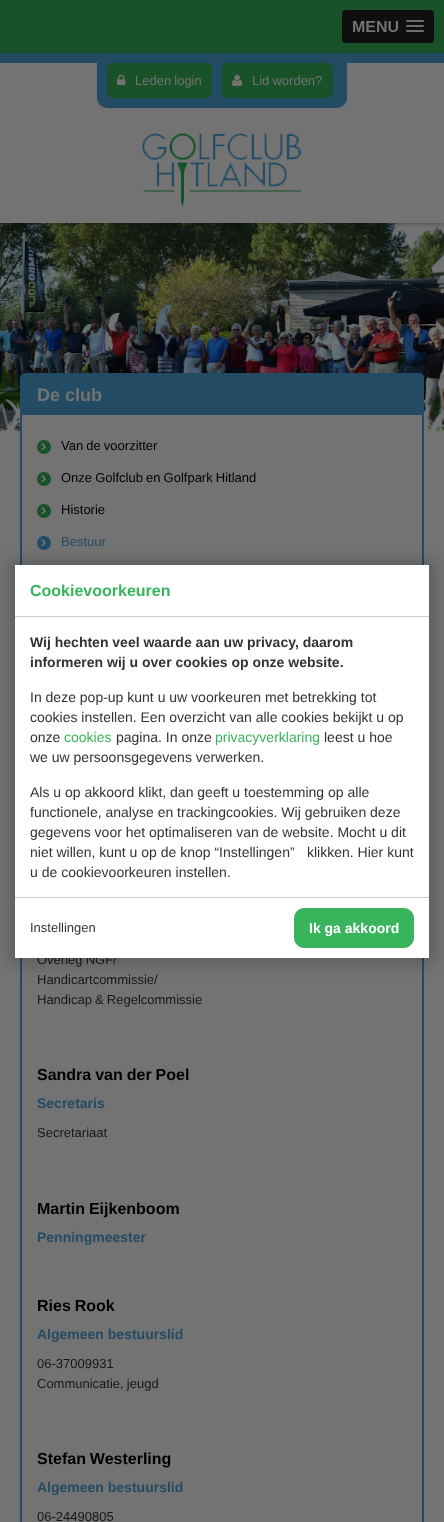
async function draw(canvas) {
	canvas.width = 444;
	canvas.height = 1522;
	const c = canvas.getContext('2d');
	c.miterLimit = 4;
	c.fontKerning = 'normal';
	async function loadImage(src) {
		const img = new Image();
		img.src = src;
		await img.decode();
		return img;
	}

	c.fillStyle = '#737373';
	c.fillRect(0, 0, 444, 1522);
	c.fillStyle = '#195129';
	c.fillRect(0, 0, 444, 53);
	c.fillStyle = '#0f0f0f';
	c.beginPath();
	c.roundRect(342, 10, 92, 33, 4);
	c.fill();
	c.font = 'bold 16px Liberation Sans';
	c.fillStyle = '#737373';
	c.fillText('MENU', 352, 32);
	c.fillStyle = '#0c0c0c';
	c.beginPath();
	c.moveTo(406, 21.5);
	c.bezierCurveTo(405, 23.5, 409.5, 23, 409.5, 23);
	c.lineTo(420.5, 23);
	c.bezierCurveTo(420.5, 23, 425, 23.5, 424, 21.5);
	c.bezierCurveTo(423, 22.5, 416.5, 22, 415, 22);
	c.bezierCurveTo(413.5, 22, 407, 22.5, 406, 21.5);
	c.closePath();
	c.fill();
	c.fillStyle = '#6e6e6e';
	c.beginPath();
	c.roundRect(406, 20, 18, 2, 1);
	c.fill();
	c.fillStyle = '#0c0c0c';
	c.beginPath();
	c.moveTo(406, 26.5);
	c.bezierCurveTo(405, 28.5, 409.5, 28, 409.5, 28);
	c.lineTo(420.5, 28);
	c.bezierCurveTo(420.5, 28, 425, 28.5, 424, 26.5);
	c.bezierCurveTo(423, 27.5, 416.5, 27, 415, 27);
	c.bezierCurveTo(413.5, 27, 407, 27.5, 406, 26.5);
	c.closePath();
	c.fill();
	c.fillStyle = '#6e6e6e';
	c.beginPath();
	c.roundRect(406, 25, 18, 2, 1);
	c.fill();
	c.fillStyle = '#0c0c0c';
	c.beginPath();
	c.moveTo(406, 31.5);
	c.bezierCurveTo(405, 33.5, 409.5, 33, 409.5, 33);
	c.lineTo(420.5, 33);
	c.bezierCurveTo(420.5, 33, 425, 33.5, 424, 31.5);
	c.bezierCurveTo(423, 32.5, 416.5, 32, 415, 32);
	c.bezierCurveTo(413.5, 32, 407, 32.5, 406, 31.5);
	c.closePath();
	c.fill();
	c.fillStyle = '#6e6e6e';
	c.beginPath();
	c.roundRect(406, 30, 18, 2, 1);
	c.fill();
	c.drawImage(await loadImage('img4.png'), 0, 223, 444, 208);
	c.save();
	c.beginPath();
	c.moveTo(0, 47);
	c.lineTo(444, 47);
	c.lineTo(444, 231);
	c.lineTo(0, 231);
	c.closePath();
	c.moveTo(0, 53);
	c.lineTo(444, 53);
	c.lineTo(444, 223);
	c.lineTo(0, 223);
	c.closePath();
	c.clip('evenodd');
	c.fillStyle = '#0000004d';
	c.filter = 'blur(2px)';
	c.beginPath();
	c.rect(0, 54, 444, 170);
	c.fill();
	c.filter = 'none';
	c.restore();
	c.fillStyle = '#244b64';
	c.fillRect(0, 53, 444, 10);
	c.beginPath();
	c.roundRect(97, 63, 250, 45, [0, 0, 10, 10]);
	c.fill();
	c.fillStyle = '#195129';
	c.beginPath();
	c.roundRect(107, 63, 105, 35, 5);
	c.fill();
	c.drawImage(await loadImage('img1.png'), 117, 74, 9, 11);
	c.wordSpacing = '-0.5px';
	c.font = '13px Liberation Sans';
	c.fillStyle = '#737373';
	c.fillText('Leden login', 135, 85);
	c.fillStyle = '#195129';
	c.beginPath();
	c.roundRect(222, 63, 111, 35, 5);
	c.fill();
	c.drawImage(await loadImage('img2.png'), 232, 74, 11, 12);
	c.fillStyle = '#737373';
	c.fillText('Lid worden?', 252, 85);
	c.drawImage(await loadImage('img3.png'), 142, 133, 160, 75);
	c.drawImage(await loadImage('img5.png'), 0, 391, 444, 57);
	c.beginPath();
	c.roundRect(21, 374, 402, 296, 4);
	c.fill();
	c.strokeStyle = '#244b64';
	c.lineWidth = 2;
	c.stroke();
	c.fillStyle = '#244b64';
	c.fillRect(22, 375, 400, 40);
	c.wordSpacing = '0px';
	c.font = 'bold 18px Liberation Sans';
	c.fillStyle = '#737373';
	c.fillText('De club', 37, 401);
	c.fillStyle = '#195129';
	c.beginPath();
	c.arc(44, 447, 7, 0, 2 * Math.PI);
	c.fill();
	c.drawImage(await loadImage('img6.png'), 41, 443, 5, 8);
	c.wordSpacing = '-0.5px';
	c.font = '13px Liberation Sans';
	c.fillStyle = '#000';
	c.fillText('Van de voorzitter', 61, 450);
	c.fillStyle = '#195129';
	c.beginPath();
	c.arc(44, 479, 7, 0, 2 * Math.PI);
	c.fill();
	c.drawImage(await loadImage('img6.png'), 41, 475, 5, 8);
	c.fillStyle = '#000';
	c.fillText('Onze Golfclub en Golfpark Hitland', 61, 482);
	c.fillStyle = '#195129';
	c.beginPath();
	c.arc(44, 511, 7, 0, 2 * Math.PI);
	c.fill();
	c.drawImage(await loadImage('img6.png'), 41, 507, 5, 8);
	c.wordSpacing = '0px';
	c.fillStyle = '#000';
	c.fillText('Historie', 61, 514);
	c.fillStyle = '#244b64';
	c.beginPath();
	c.arc(44, 543, 7, 0, 2 * Math.PI);
	c.fill();
	c.drawImage(await loadImage('img7.png'), 41, 539, 5, 8);
	c.fillText('Bestuur', 61, 546);
	c.strokeRect(21, 702, 402, 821);
	c.wordSpacing = '-0.5px';
	c.fillStyle = '#171717';
	c.fillText('Overleg NGF/', 37, 964);
	c.wordSpacing = '0px';
	c.fillText('Handicartcommissie/', 37, 984);
	c.wordSpacing = '-0.5px';
	c.fillText('Handicap & Regelcommissie', 37, 1004);
	c.font = 'bold 16px Liberation Sans';
	c.fillStyle = '#000';
	c.fillText('Sandra van der Poel', 37, 1080);
	c.wordSpacing = '0px';
	c.font = 'bold 14px Liberation Sans';
	c.fillStyle = '#244b64';
	c.fillText('Secretaris', 37, 1108);
	c.font = '13px Liberation Sans';
	c.fillStyle = '#171717';
	c.fillText('Secretariaat', 37, 1137);
	c.wordSpacing = '-0.5px';
	c.font = 'bold 16px Liberation Sans';
	c.fillStyle = '#000';
	c.fillText('Martin Eijkenboom', 37, 1214);
	c.wordSpacing = '0px';
	c.font = 'bold 14px Liberation Sans';
	c.fillStyle = '#244b64';
	c.fillText('Penningmeester', 37, 1242);
	c.wordSpacing = '-0.5px';
	c.font = 'bold 16px Liberation Sans';
	c.fillStyle = '#000';
	c.fillText('Ries Rook', 37, 1311);
	c.wordSpacing = '0px';
	c.font = 'bold 14px Liberation Sans';
	c.fillStyle = '#244b64';
	c.fillText('Algemeen bestuurslid', 37, 1339);
	c.font = '13px Liberation Sans';
	c.fillStyle = '#171717';
	c.fillText('06-37009931', 37, 1368);
	c.wordSpacing = '-0.5px';
	c.fillText('Communicatie, jeugd', 37, 1388);
	c.font = 'bold 16px Liberation Sans';
	c.fillStyle = '#000';
	c.fillText('Stefan Westerling', 37, 1464);
	c.wordSpacing = '0px';
	c.font = 'bold 14px Liberation Sans';
	c.fillStyle = '#244b64';
	c.fillText('Algemeen bestuurslid', 37, 1492);
	c.font = '13px Liberation Sans';
	c.fillStyle = '#171717';
	c.fillText('06-24490805', 37, 1521);
	c.fillStyle = '#00000033';
	c.filter = 'blur(7.5px)';
	c.beginPath();
	c.rect(10, 560, 424, 403);
	c.fill();
	c.filter = 'none';
	c.fillStyle = '#fff';
	c.fillRect(15, 565, 414, 393);
	c.fillStyle = '#ccc';
	c.fillRect(15, 616, 414, 1);
	c.font = 'bold 16px Liberation Sans';
	c.fillStyle = '#38b55c';
	c.fillText('Cookievoorkeuren', 30, 596);
	c.font = 'bold 14px Liberation Sans';
	c.fillStyle = '#333';
	c.fillText('Wij hechten veel waarde aan uw privacy, daarom', 30, 647);
	c.fillText('informeren wij u over cookies op onze website.', 30, 667);
	c.font = '14px Liberation Sans';
	for (const [text, x, y] of [
		['In deze pop-up kunt u uw voorkeuren met betrekking tot', 30, 702],
		['cookies instellen. Een overzicht van alle cookies bekijkt u op', 30, 722],
		['onze', 30, 742],
	]) {
		c.fillText(text, x, y);
	}
	c.fillStyle = '#38b55c';
	c.fillText('cookies', 64, 742);
	c.fillStyle = '#333';
	c.fillText('pagina. In onze', 116, 742);
	c.fillStyle = '#38b55c';
	c.fillText('privacyverklaring', 215, 742);
	c.fillStyle = '#333';
	for (const [text, x, y] of [
		['leest u hoe', 324, 742],
		['we uw persoonsgegevens verwerken.', 30, 762],
		['Als u op akkoord klikt, dan geeft u toestemming op alle', 30, 797],
		['functionele, analyse en trackingcookies. Wij gebruiken deze', 30, 817],
		['gegevens voor het optimaliseren van de website. Mocht u dit', 30, 837],
		['niet willen, kunt u op de knop “Instellingen”', 30, 857],
		['klikken. Hier kunt', 307, 857],
		['u de cookievoorkeuren instellen.', 30, 877],
	]) {
		c.fillText(text, x, y);
	}
	c.fillStyle = '#ccc';
	c.fillRect(15, 897, 414, 1);
	c.font = '13px Liberation Sans';
	c.fillStyle = '#333';
	c.fillText('Instellingen', 30, 932);
	c.fillStyle = '#38b55c';
	c.beginPath();
	c.roundRect(294.5, 908.5, 119, 39, 9.5);
	c.fill();
	c.strokeStyle = '#38b55c';
	c.lineWidth = 1;
	c.stroke();
	c.font = 'bold 14px Liberation Sans';
	c.fillStyle = '#fff';
	c.fillText('Ik ga akkoord', 309, 933);
}

draw(document.querySelector('canvas'));
